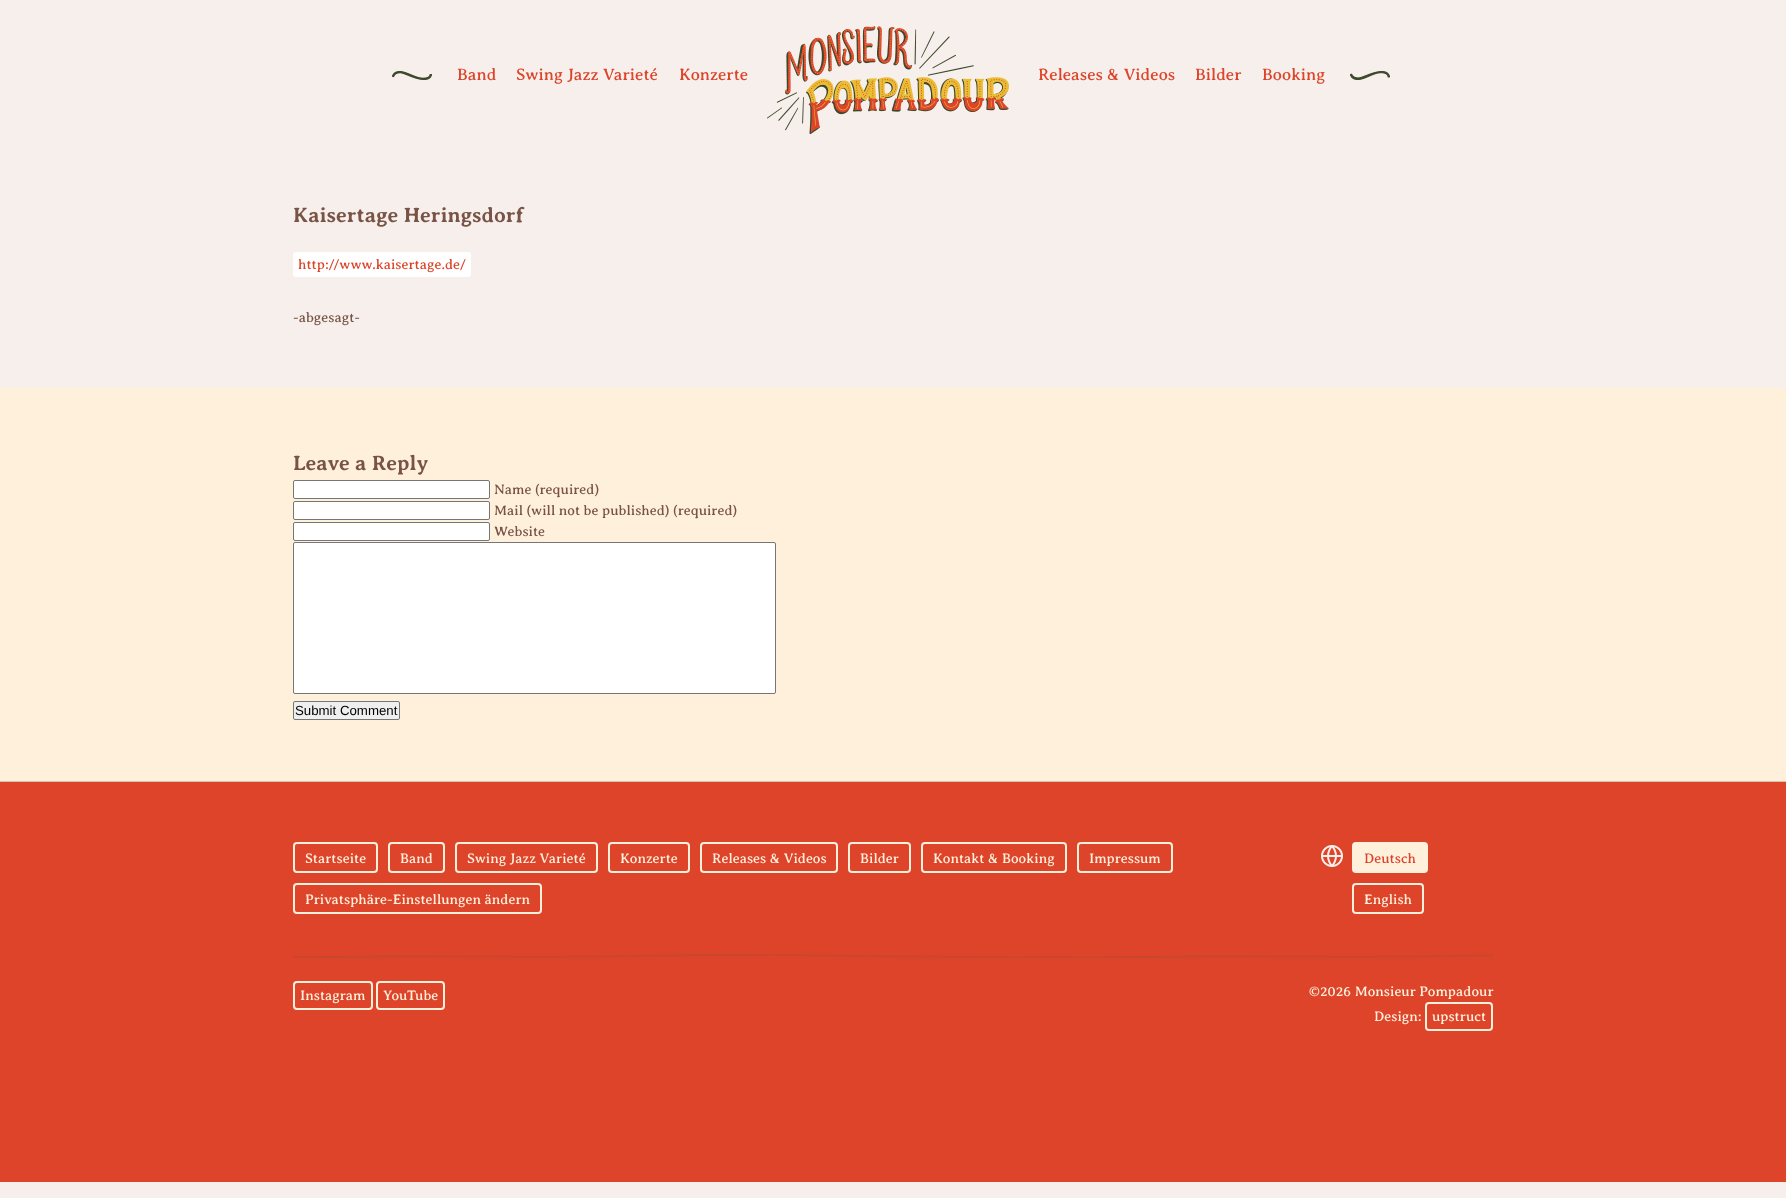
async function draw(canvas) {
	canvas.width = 1786;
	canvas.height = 1198;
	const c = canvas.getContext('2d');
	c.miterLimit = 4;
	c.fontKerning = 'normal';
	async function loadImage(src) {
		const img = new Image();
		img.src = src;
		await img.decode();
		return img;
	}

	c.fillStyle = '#f6efeb';
	c.fillRect(0, 0, 1786, 1198);
	c.drawImage(await loadImage('img1.png'), 392, 71, 40, 9);
	c.font = '16.75px Averia Serif Libre';
	c.fillStyle = '#dd442a';
	for (const [text, x, y] of [
		['Band', 457, 80],
		['Swing Jazz Varieté', 516, 80],
		['Konzerte', 679, 80],
	]) {
		c.fillText(text, x, y);
	}
	c.drawImage(await loadImage('img2.png'), 767, 26, 242, 108);
	for (const [text, x, y] of [
		['Releases & Videos', 1038, 80],
		['Bilder', 1195, 80],
		['Booking', 1262, 80],
	]) {
		c.fillText(text, x, y);
	}
	c.drawImage(await loadImage('img3.png'), 1350, 71, 40, 9);
	c.font = 'bold 21px Averia Serif Libre';
	c.fillStyle = '#795446';
	c.fillText('Kaisertage Heringsdorf', 293, 222);
	c.fillStyle = '#fff';
	c.beginPath();
	c.roundRect(293, 252, 178, 25, 3);
	c.fill();
	c.font = '14px Averia Serif Libre';
	c.fillStyle = '#dd442a';
	c.fillText('http://www.kaisertage.de/', 298, 269);
	c.fillStyle = '#795446';
	c.fillText('-abgesagt-', 293, 322);
	c.fillStyle = '#fff0dc';
	c.fillRect(0, 388, 1786, 393);
	c.fillStyle = '#cfc6b0';
	c.fillRect(0, 781, 1786, 1);
	c.font = 'bold 21px Averia Serif Libre';
	c.fillStyle = '#795446';
	c.fillText('Leave a Reply', 293, 470);
	c.fillStyle = '#fff';
	c.beginPath();
	c.roundRect(293.5, 480.5, 196, 18, 1.5);
	c.fill();
	c.strokeStyle = '#767676';
	c.stroke();
	c.font = '14px Averia Serif Libre';
	c.fillStyle = '#795446';
	c.fillText('Name (required)', 494, 494);
	c.fillStyle = '#fff';
	c.beginPath();
	c.roundRect(293.5, 501.5, 196, 18, 1.5);
	c.fill();
	c.stroke();
	c.fillStyle = '#795446';
	c.fillText('Mail (will not be published) (required)', 494, 515);
	c.fillStyle = '#fff';
	c.beginPath();
	c.roundRect(293.5, 522.5, 196, 18, 1.5);
	c.fill();
	c.stroke();
	c.fillStyle = '#795446';
	c.fillText('Website', 494, 536);
	c.fillStyle = '#fff';
	c.beginPath();
	c.roundRect(293.5, 542.5, 482, 151, 1.5);
	c.fill();
	c.stroke();
	c.fillStyle = '#efefef';
	c.beginPath();
	c.roundRect(293.5, 701.5, 106, 18, 1.5);
	c.fill();
	c.stroke();
	c.font = '13.25px Liberation Sans';
	c.fillStyle = '#000';
	c.fillText('Submit Comment', 295, 715);
	c.fillStyle = '#dd442a';
	c.fillRect(0, 782, 1786, 400);
	c.beginPath();
	c.roundRect(294, 843, 83, 29, 3);
	c.strokeStyle = '#fff0dc';
	c.lineWidth = 2;
	c.stroke();
	c.font = '14px Averia Serif Libre';
	c.fillStyle = '#fff0dc';
	c.fillText('Startseite', 305, 863);
	c.beginPath();
	c.roundRect(389, 843, 55, 29, 3);
	c.stroke();
	c.fillText('Band', 400, 863);
	c.beginPath();
	c.roundRect(456, 843, 141, 29, 3);
	c.stroke();
	c.fillText('Swing Jazz Varieté', 467, 863);
	c.beginPath();
	c.roundRect(609, 843, 80, 29, 3);
	c.stroke();
	c.fillText('Konzerte', 620, 863);
	c.beginPath();
	c.roundRect(701, 843, 136, 29, 3);
	c.stroke();
	c.fillText('Releases & Videos', 712, 863);
	c.beginPath();
	c.roundRect(849, 843, 61, 29, 3);
	c.stroke();
	c.fillText('Bilder', 860, 863);
	c.beginPath();
	c.roundRect(922, 843, 144, 29, 3);
	c.stroke();
	c.fillText('Kontakt & Booking', 933, 863);
	c.beginPath();
	c.roundRect(1078, 843, 94, 29, 3);
	c.stroke();
	c.fillText('Impressum', 1089, 863);
	c.beginPath();
	c.roundRect(294, 884, 247, 29, 3);
	c.stroke();
	c.fillText('Privatsphäre-Einstellungen ändern', 305, 904);
	c.drawImage(await loadImage('img4.png'), 1321, 845, 22, 22);
	c.beginPath();
	c.roundRect(1353, 843, 74, 29, 3);
	c.fill();
	c.stroke();
	c.fillStyle = '#dd442a';
	c.fillText('Deutsch', 1364, 863);
	c.beginPath();
	c.roundRect(1353, 884, 70, 29, 3);
	c.stroke();
	c.fillStyle = '#fff0dc';
	c.fillText('English', 1364, 904);
	c.drawImage(await loadImage('img5.png'), 293, 954, 1200, 4);
	c.beginPath();
	c.roundRect(294, 982, 78, 27, 3);
	c.stroke();
	c.fillText('Instagram', 300, 1000);
	c.beginPath();
	c.roundRect(377, 982, 67, 27, 3);
	c.stroke();
	for (const [text, x, y] of [
		['YouTube', 383, 1000],
		['©2026 Monsieur Pompadour', 1309, 996],
		['Design:', 1374, 1021],
	]) {
		c.fillText(text, x, y);
	}
	c.beginPath();
	c.roundRect(1426, 1003, 66, 27, 3);
	c.stroke();
	c.fillText('upstruct', 1432, 1021);
}

draw(document.querySelector('canvas'));
